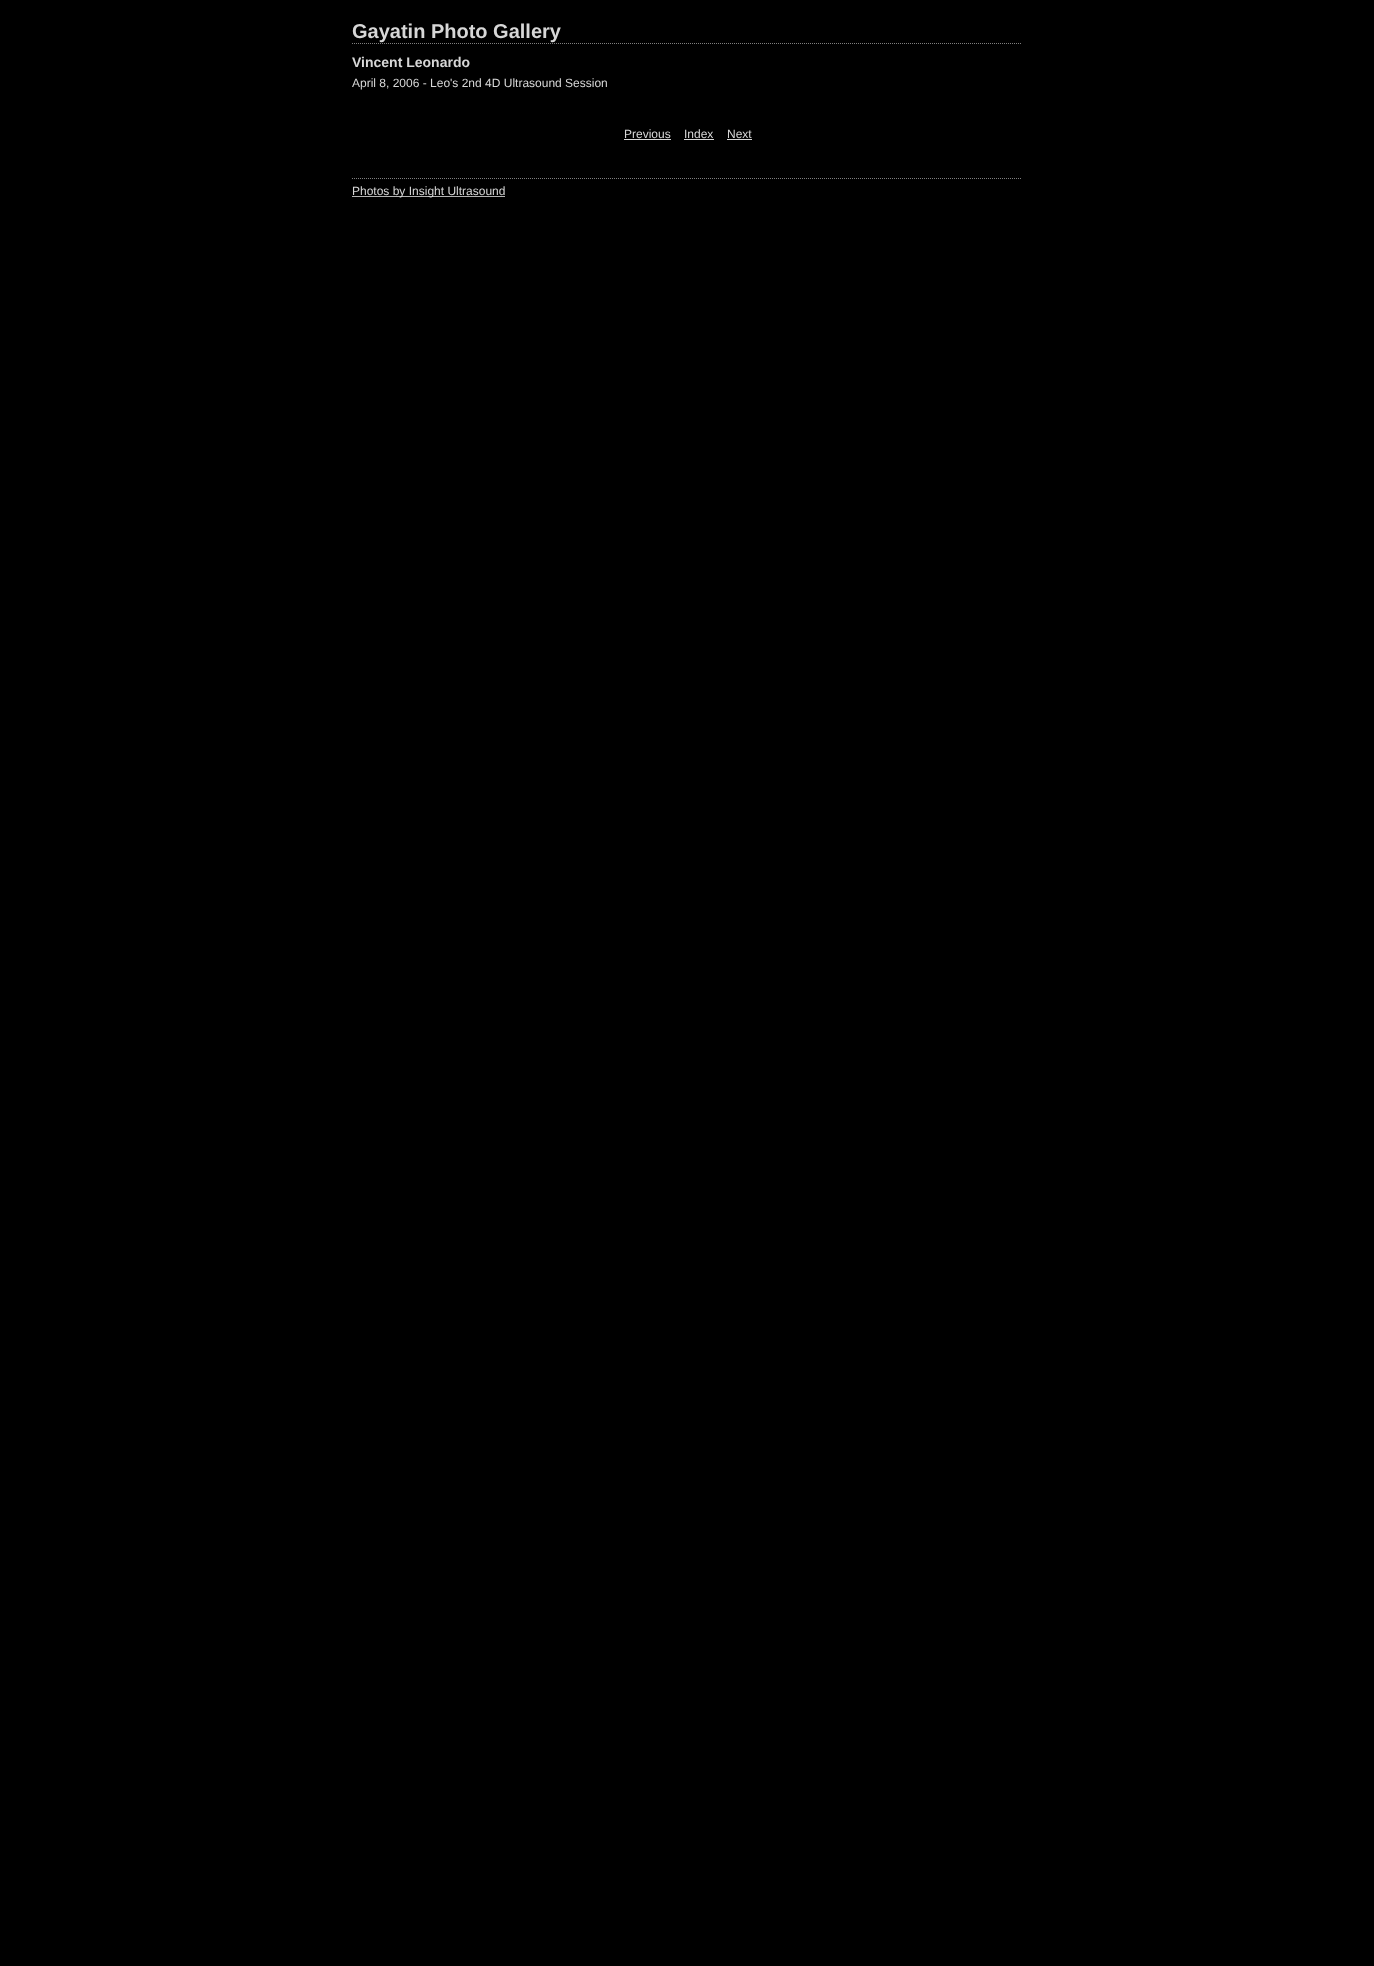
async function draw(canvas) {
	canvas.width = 1374;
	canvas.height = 1966;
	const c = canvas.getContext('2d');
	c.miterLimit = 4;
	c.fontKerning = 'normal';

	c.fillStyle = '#000';
	c.fillRect(0, 0, 1374, 1966);
	c.beginPath();
	c.moveTo(352, 43.5);
	c.lineTo(1022, 43.5);
	c.strokeStyle = '#7f7f7f';
	c.setLineDash([1, 1]);
	c.stroke();
	c.font = 'bold 20px Liberation Sans';
	c.fillStyle = '#d7d7d7';
	c.fillText('Gayatin Photo Gallery', 352, 38);
	c.font = 'bold 14px Liberation Sans';
	c.fillText('Vincent Leonardo', 352, 67);
	c.font = '12px Liberation Sans';
	c.fillText('April 8, 2006 - Leo\'s 2nd 4D Ultrasound Session', 352, 87);
	c.fillText('Previous', 624, 138);
	c.fillRect(624, 139, 47, 1);
	c.fillText('Index', 684, 138);
	c.fillRect(684, 139, 30, 1);
	c.fillText('Next', 727, 138);
	c.fillRect(727, 139, 25, 1);
	c.beginPath();
	c.moveTo(352, 178.5);
	c.lineTo(1022, 178.5);
	c.stroke();
	c.fillStyle = '#b3b3b3';
	c.fillRect(352, 196, 153, 1);
	c.fillStyle = '#d7d7d7';
	c.fillText('Photos by Insight Ultrasound', 352, 195);
}

draw(document.querySelector('canvas'));
